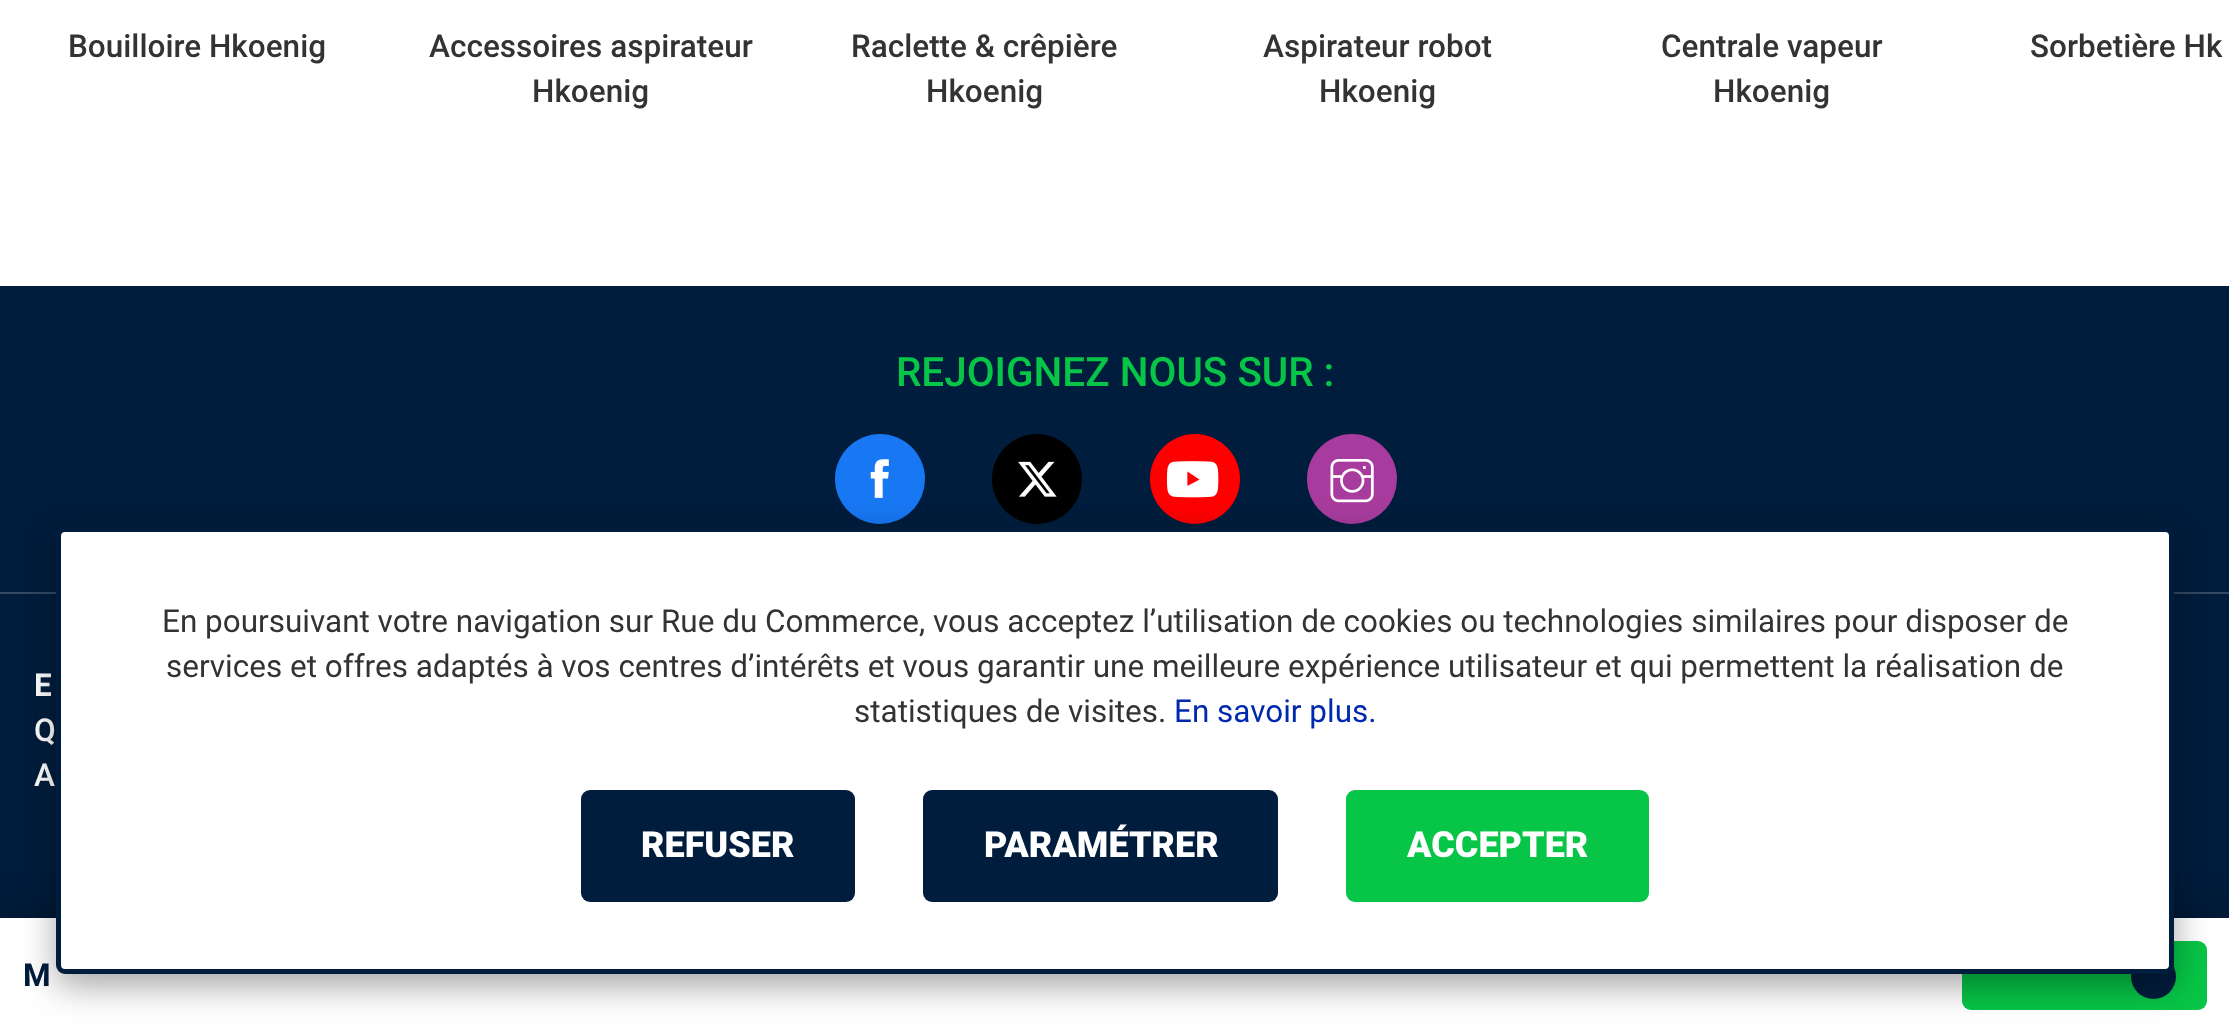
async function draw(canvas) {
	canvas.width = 2229;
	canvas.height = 1029;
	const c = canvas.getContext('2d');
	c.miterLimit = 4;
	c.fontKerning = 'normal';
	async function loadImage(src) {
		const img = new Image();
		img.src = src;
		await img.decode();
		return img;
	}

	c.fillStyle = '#fff';
	c.fillRect(0, 0, 2229, 1029);
	c.font = '500 31.5px Roboto';
	c.fillStyle = '#333';
	for (const [text, x, y] of [
		['Bouilloire Hkoenig', 68, 57],
		['Accessoires aspirateur', 429, 57],
		['Hkoenig', 532, 102],
		['Raclette & crêpière', 851, 57],
		['Hkoenig', 926, 102],
		['Aspirateur robot', 1263, 57],
		['Hkoenig', 1319, 102],
		['Centrale vapeur', 1661, 57],
		['Hkoenig', 1713, 102],
		['Sorbetière Hk', 2030, 57],
	]) {
		c.fillText(text, x, y);
	}
	c.fillStyle = '#001d3d';
	c.fillRect(0, 594, 2229, 324);
	c.fillStyle = '#0000004d';
	c.filter = 'blur(22.5px)';
	c.beginPath();
	c.rect(0, 918, 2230, 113);
	c.fill();
	c.filter = 'none';
	c.fillStyle = '#fff';
	c.fillRect(0, 918, 2229, 111);
	c.font = 'bold 31.5px Roboto';
	c.fillStyle = '#001d3d';
	c.fillText('M', 23, 986);
	c.fillStyle = '#07c546';
	c.beginPath();
	c.roundRect(1962, 941, 245, 69, 9);
	c.fill();
	c.fillStyle = '#001d3d';
	c.beginPath();
	c.arc(2153.5, 976.5, 22.5, 0, 2 * Math.PI);
	c.fill();
	c.fillRect(0, 286, 2229, 306);
	c.fillStyle = '#334a64';
	c.fillRect(0, 592, 2229, 2);
	c.font = '500 40.5px Roboto';
	c.fillStyle = '#07c546';
	c.fillText('REJOIGNEZ NOUS SUR :', 896, 386);
	c.fillStyle = '#1877f2';
	c.beginPath();
	c.arc(880, 479, 45, 0, 2 * Math.PI);
	c.fill();
	c.drawImage(await loadImage('img1.png'), 870, 459, 19, 39);
	c.fillStyle = '#000';
	c.beginPath();
	c.arc(1037, 479, 45, 0, 2 * Math.PI);
	c.fill();
	c.drawImage(await loadImage('img2.png'), 1018, 461, 39, 36);
	c.fillStyle = '#f00';
	c.beginPath();
	c.arc(1195, 479, 45, 0, 2 * Math.PI);
	c.fill();
	c.drawImage(await loadImage('img3.png'), 1166, 461, 53, 37);
	c.fillStyle = '#a83c9e';
	c.beginPath();
	c.arc(1352, 479, 45, 0, 2 * Math.PI);
	c.fill();
	c.drawImage(await loadImage('img4.png'), 1330, 459, 44, 44);
	c.font = 'bold 31.5px Roboto';
	c.fillStyle = '#fff';
	c.fillText('E', 34, 696);
	c.font = '500 31.5px Roboto';
	c.fillText('Q', 34, 741);
	c.fillText('A', 34, 786);
	c.fillStyle = '#00000059';
	c.filter = 'blur(17px)';
	c.beginPath();
	c.roundRect(56, 538, 2118, 448, 9);
	c.fill();
	c.filter = 'none';
	c.fillStyle = '#fff';
	c.beginPath();
	c.roundRect(58.5, 529.5, 2113, 442, 6.5);
	c.fill();
	c.strokeStyle = '#001d3d';
	c.lineWidth = 5;
	c.stroke();
	c.font = '31.5px Roboto';
	c.fillStyle = '#333';
	for (const [text, x, y] of [
		['En poursuivant votre navigation sur Rue du Commerce, vous acceptez l’utilisation de cookies ou technologies similaires pour disposer de', 162, 632],
		['services et offres adaptés à vos centres d’intérêts et vous garantir une meilleure expérience utilisateur et qui permettent la réalisation de', 166, 677],
		['statistiques de visites.', 854, 722],
	]) {
		c.fillText(text, x, y);
	}
	c.fillStyle = '#0029af';
	c.fillText('En savoir plus.', 1174, 722);
	c.fillStyle = '#001d3d';
	c.beginPath();
	c.roundRect(581, 790, 274, 112, 9);
	c.fill();
	c.font = '900 36px Roboto';
	c.fillStyle = '#fff';
	c.fillText('REFUSER', 641, 857);
	c.fillStyle = '#001d3d';
	c.beginPath();
	c.roundRect(923, 790, 355, 112, 9);
	c.fill();
	c.fillStyle = '#fff';
	c.fillText('PARAMÉTRER', 984, 857);
	c.fillStyle = '#07c546';
	c.beginPath();
	c.roundRect(1346, 790, 303, 112, 9);
	c.fill();
	c.fillStyle = '#fff';
	c.fillText('ACCEPTER', 1407, 857);
}

draw(document.querySelector('canvas'));
